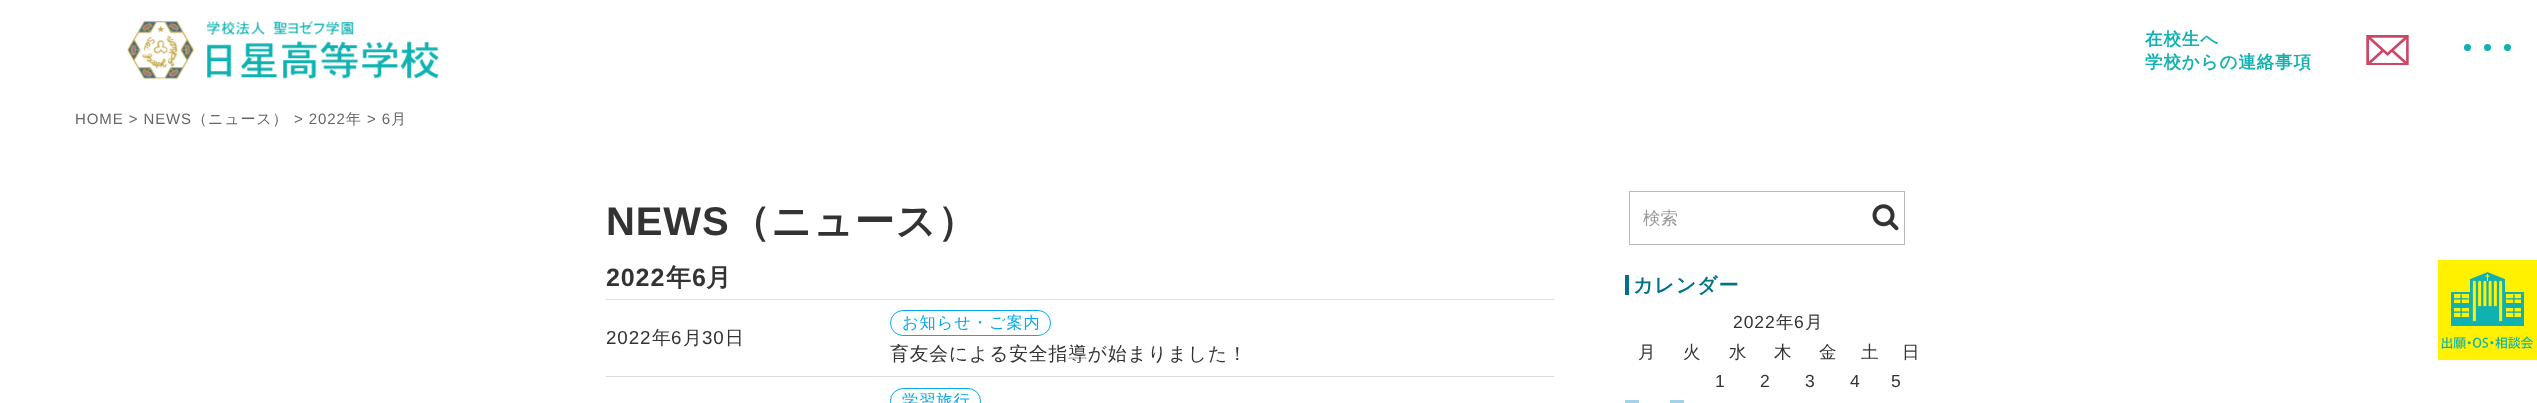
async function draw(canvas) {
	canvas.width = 2537;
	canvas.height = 403;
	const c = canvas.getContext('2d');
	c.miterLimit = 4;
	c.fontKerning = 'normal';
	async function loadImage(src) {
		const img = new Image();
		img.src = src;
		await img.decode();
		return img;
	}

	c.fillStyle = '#fff';
	c.fillRect(0, 0, 2537, 403);
	c.drawImage(await loadImage('img1.png'), 127, 21, 312, 59);
	c.drawImage(await loadImage('img2.png'), 2366, 35, 43, 30);
	c.letterSpacing = '0.9px';
	c.font = 'bold 17.5px WenQuanYi Zen Hei';
	c.fillStyle = '#0fb1b1';
	c.fillText('在校生へ', 2145, 45);
	c.fillText('学校からの連絡事項', 2145, 68);
	c.beginPath();
	c.arc(2467.5, 47.5, 3.5, 0, 2 * Math.PI);
	c.fill();
	c.beginPath();
	c.arc(2487.5, 47.5, 3.5, 0, 2 * Math.PI);
	c.fill();
	c.beginPath();
	c.arc(2507.5, 47.5, 3.5, 0, 2 * Math.PI);
	c.fill();
	c.font = '15px Liberation Sans';
	c.fillStyle = '#666';
	c.fillText('HOME > NEWS', 75, 124);
	c.font = '500 15px WenQuanYi Zen Hei';
	c.fillText('（ニュース）', 192, 124);
	c.font = '15px Liberation Sans';
	c.fillText('> 2022', 294, 124);
	c.font = '500 15px WenQuanYi Zen Hei';
	c.fillText('年', 346, 124);
	c.font = '15px Liberation Sans';
	c.fillText('> 6', 367, 124);
	c.font = '500 15px WenQuanYi Zen Hei';
	c.fillText('月', 391, 124);
	c.font = 'bold 40px Liberation Sans';
	c.fillStyle = '#333';
	c.fillText('NEWS', 606, 235);
	c.font = 'bold 40px WenQuanYi Zen Hei';
	c.fillText('（ニュース）', 730, 235);
	c.font = 'bold 25px Liberation Sans';
	c.fillText('2022', 606, 286);
	c.font = 'bold 25px WenQuanYi Zen Hei';
	c.fillText('年', 666, 286);
	c.font = 'bold 25px Liberation Sans';
	c.fillText('6', 692, 286);
	c.font = 'bold 25px WenQuanYi Zen Hei';
	c.fillText('月', 706, 286);
	c.fillStyle = '#ddd';
	c.fillRect(606, 299, 948, 1);
	c.fillRect(606, 376, 948, 1);
	c.font = '18.75px Liberation Sans';
	c.fillStyle = '#333';
	c.fillText('2022', 606, 344);
	c.font = '500 18.75px WenQuanYi Zen Hei';
	c.fillText('年', 652, 344);
	c.font = '18.75px Liberation Sans';
	c.fillText('6', 671, 344);
	c.font = '500 18.75px WenQuanYi Zen Hei';
	c.fillText('月', 683, 344);
	c.font = '18.75px Liberation Sans';
	c.fillText('30', 702, 344);
	c.font = '500 18.75px WenQuanYi Zen Hei';
	c.fillText('日', 725, 344);
	c.beginPath();
	c.roundRect(890.5, 310.5, 160, 25, 12.5);
	c.strokeStyle = '#07aaea';
	c.stroke();
	c.font = '500 16.25px WenQuanYi Zen Hei';
	c.fillStyle = '#07aaea';
	c.fillText('お知らせ・ご案内', 902, 328);
	c.font = '500 18.75px WenQuanYi Zen Hei';
	c.fillStyle = '#333';
	c.fillText('育友会による安全指導が始まりました！', 890, 360);
	c.beginPath();
	c.roundRect(890.5, 388.5, 90, 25, 12.5);
	c.stroke();
	c.font = '500 16.25px WenQuanYi Zen Hei';
	c.fillStyle = '#07aaea';
	c.fillText('学習旅行', 902, 406);
	c.strokeStyle = '#bbb';
	c.strokeRect(1629.5, 191.5, 275, 53);
	c.letterSpacing = '0px';
	c.font = '500 17.5px WenQuanYi Zen Hei';
	c.fillStyle = '#999';
	c.fillText('検索', 1643, 224);
	c.drawImage(await loadImage('img3.png'), 1872, 204, 27, 27);
	c.fillStyle = '#017088';
	c.fillRect(1625, 275, 4, 20);
	c.letterSpacing = '0.9px';
	c.font = 'bold 20px WenQuanYi Zen Hei';
	c.fillText('カレンダー', 1633, 292);
	c.font = '17.5px Liberation Sans';
	c.fillStyle = '#333';
	c.fillText('2022', 1733, 328);
	c.font = '500 17.5px WenQuanYi Zen Hei';
	c.fillText('年', 1776, 328);
	c.font = '17.5px Liberation Sans';
	c.fillText('6', 1794, 328);
	c.font = '500 17.5px WenQuanYi Zen Hei';
	for (const [text, x, y] of [
		['月', 1805, 328],
		['月', 1638, 358],
		['火', 1683, 358],
		['水', 1729, 358],
		['木', 1774, 358],
		['金', 1819, 358],
		['土', 1861, 358],
		['日', 1902, 358],
	]) {
		c.fillText(text, x, y);
	}
	c.font = '17.5px Liberation Sans';
	for (const [text, x, y] of [
		['1', 1715, 387],
		['2', 1760, 387],
		['3', 1805, 387],
		['4', 1850, 387],
		['5', 1891, 387],
	]) {
		c.fillText(text, x, y);
	}
	c.fillStyle = '#a3d3e6';
	c.fillRect(1625, 400, 14, 3);
	c.fillRect(1670, 400, 14, 3);
	c.drawImage(await loadImage('img4.png'), 2438, 260, 99, 100);
}

draw(document.querySelector('canvas'));
